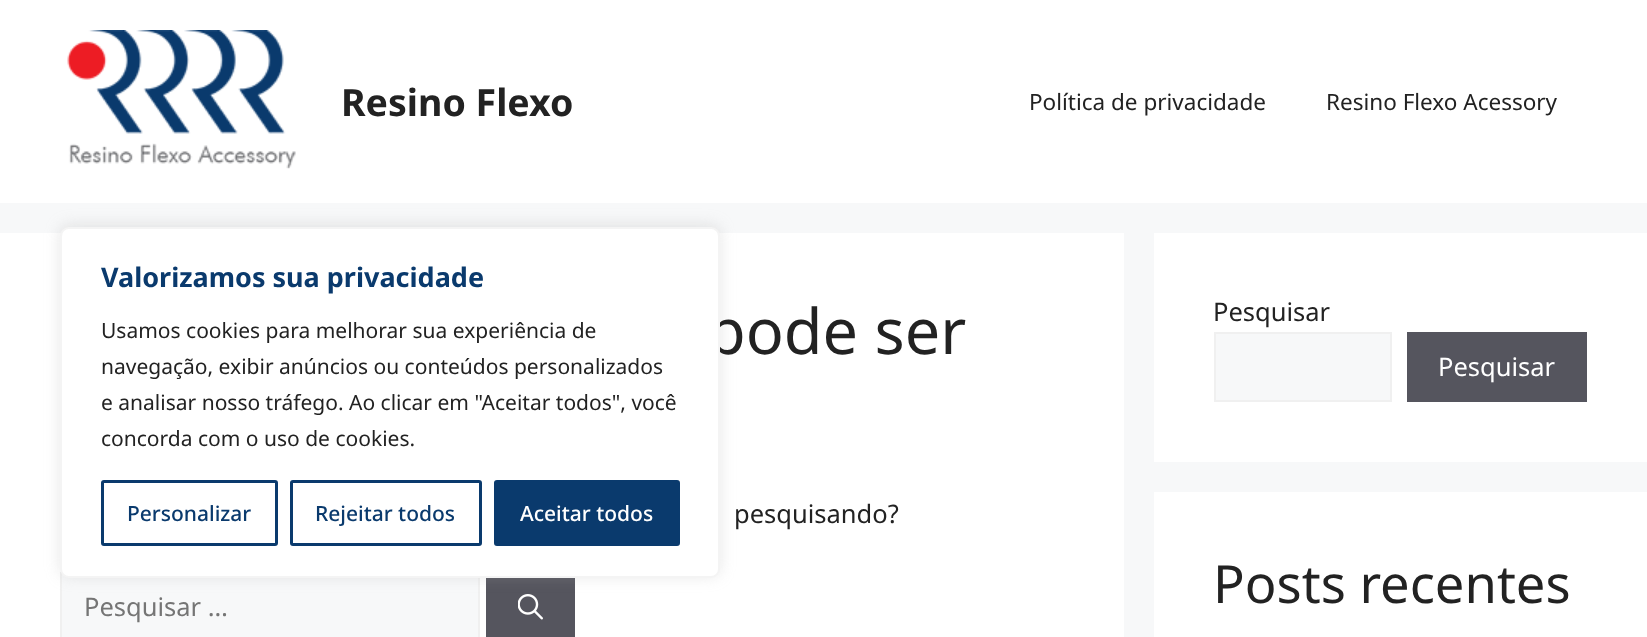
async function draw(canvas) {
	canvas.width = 1647;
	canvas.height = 637;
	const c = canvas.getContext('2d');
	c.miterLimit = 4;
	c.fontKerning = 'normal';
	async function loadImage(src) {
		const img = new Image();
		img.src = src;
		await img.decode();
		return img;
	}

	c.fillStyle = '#f7f8f9';
	c.fillRect(0, 0, 1647, 637);
	c.fillStyle = '#fff';
	c.fillRect(0, 0, 1647, 203);
	c.drawImage(await loadImage('img1.png'), 67, 30, 229, 139);
	c.font = 'bold 37.5px Noto Sans';
	c.fillStyle = '#222';
	c.fillText('Resino Flexo', 341, 116);
	c.font = '22.5px Noto Sans';
	c.fillText('Política de privacidade', 1029, 110);
	c.fillText('Resino Flexo Acessory', 1326, 110);
	c.fillStyle = '#fff';
	c.fillRect(0, 233, 1124, 404);
	c.fillStyle = '#f7f8f9';
	c.beginPath();
	c.rect(61, 573, 418, 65);
	c.fill();
	c.strokeStyle = '#f0f0f0';
	c.lineWidth = 2;
	c.stroke();
	c.fillStyle = '#55555e';
	c.fillRect(486, 578, 89, 59);
	c.drawImage(await loadImage('img2.png'), 518, 594, 25, 26);
	c.fillStyle = '#acabab4d';
	c.filter = 'blur(7.5px)';
	c.beginPath();
	c.roundRect(60, 225, 660, 351, 9);
	c.fill();
	c.filter = 'none';
	c.font = '63px Noto Sans';
	c.fillStyle = '#222';
	c.fillText('pode ser', 707, 354);
	c.fillStyle = '#fff';
	c.beginPath();
	c.roundRect(61, 228, 658, 349, 8);
	c.fill();
	c.strokeStyle = '#f4f4f4';
	c.stroke();
	c.font = 'bold 27px Noto Sans';
	c.fillStyle = '#0a3a6d';
	c.fillText('Valorizamos sua privacidade', 101, 287);
	c.font = '21px Noto Sans';
	c.fillStyle = '#222';
	for (const [text, x, y] of [
		['Usamos cookies para melhorar sua experiência de', 101, 338],
		['navegação, exibir anúncios ou conteúdos personalizados', 101, 374],
		['e analisar nosso tráfego. Ao clicar em "Aceitar todos", você', 101, 410],
		['concorda com o uso de cookies.', 101, 446],
	]) {
		c.fillText(text, x, y);
	}
	c.beginPath();
	c.roundRect(102.5, 481.5, 174, 63, 1.5);
	c.strokeStyle = '#0a3a6d';
	c.lineWidth = 3;
	c.stroke();
	c.font = '500 21px Noto Sans';
	c.fillStyle = '#0a3a6d';
	c.fillText('Personalizar', 127, 521);
	c.beginPath();
	c.roundRect(291.5, 481.5, 189, 63, 1.5);
	c.stroke();
	c.fillText('Rejeitar todos', 315, 521);
	c.beginPath();
	c.roundRect(495.5, 481.5, 183, 63, 1.5);
	c.fill();
	c.stroke();
	c.fillStyle = '#fff';
	c.fillText('Aceitar todos', 520, 521);
	c.font = '25.5px Noto Sans';
	c.fillStyle = '#222';
	c.fillText('pesquisando?', 734, 523);
	c.fillStyle = '#757575';
	c.fillText('Pesquisar …', 84, 616);
	c.fillStyle = '#fff';
	c.fillRect(1154, 233, 493, 229);
	c.fillStyle = '#222';
	c.fillText('Pesquisar', 1213, 321);
	c.fillStyle = '#f7f8f9';
	c.beginPath();
	c.rect(1215, 333, 176, 68);
	c.fill();
	c.strokeStyle = '#f0f0f0';
	c.lineWidth = 2;
	c.stroke();
	c.fillStyle = '#55555e';
	c.fillRect(1407, 332, 180, 70);
	c.fillStyle = '#fff';
	c.fillText('Pesquisar', 1438, 376);
	c.fillRect(1154, 492, 493, 145);
	c.font = '52.5px Noto Sans';
	c.fillStyle = '#222';
	c.fillText('Posts recentes', 1213, 603);
}

draw(document.querySelector('canvas'));
